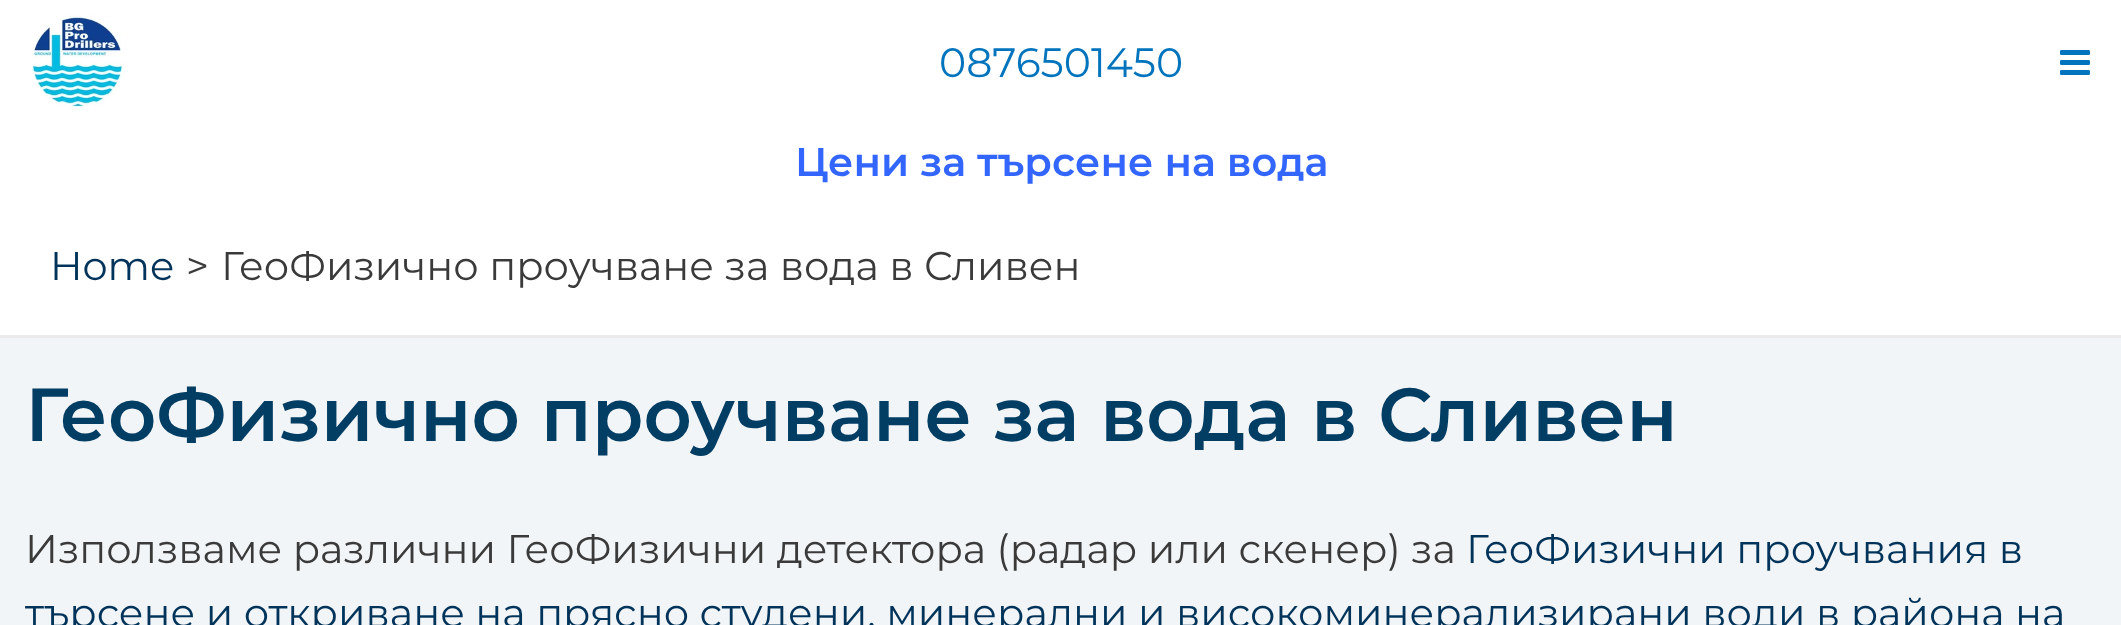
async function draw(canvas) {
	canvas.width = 2121;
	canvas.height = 625;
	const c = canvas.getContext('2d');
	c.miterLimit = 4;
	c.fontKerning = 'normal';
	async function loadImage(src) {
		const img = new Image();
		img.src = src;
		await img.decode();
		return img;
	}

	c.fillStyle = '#f2f5f7';
	c.fillRect(0, 0, 2121, 625);
	c.fillStyle = '#fff';
	c.fillRect(0, 0, 2121, 200);
	c.drawImage(await loadImage('img1.png'), 30, 15, 95, 95);
	c.font = '41px Montserrat';
	c.fillStyle = '#0274be';
	c.fillText('0876501450', 939, 77);
	c.drawImage(await loadImage('img2.png'), 2060, 50, 30, 25);
	c.font = '600 40px Montserrat';
	c.fillStyle = '#36f';
	c.fillText('Цени за търсене на вода', 795, 176);
	c.fillStyle = '#fff';
	c.fillRect(0, 200, 2121, 135);
	c.fillStyle = '#eaeaea';
	c.fillRect(0, 335, 2121, 3);
	c.font = '40px Montserrat';
	c.fillStyle = '#00335a';
	c.fillText('Home', 50, 280);
	c.fillStyle = '#3a3a3a';
	c.fillText('>', 186, 280);
	c.fillText('ГеоФизично проучване за вода в Сливен', 221, 280);
	c.font = '600 75px Montserrat';
	c.fillStyle = '#023d64';
	c.fillText('ГеоФизично проучване за вода в Сливен', 25, 441);
	c.font = '40px Montserrat';
	c.fillStyle = '#3a3a3a';
	c.fillText('Използваме различни ГеоФизични детектора (радар или скенер) за', 25, 563);
	c.fillStyle = '#00335a';
	c.fillText('ГеоФизични проучвания в', 1466, 563);
	c.fillText('търсене и откриване на прясно студени, минерални и високоминерализирани води в района на', 25, 627);
}

draw(document.querySelector('canvas'));
